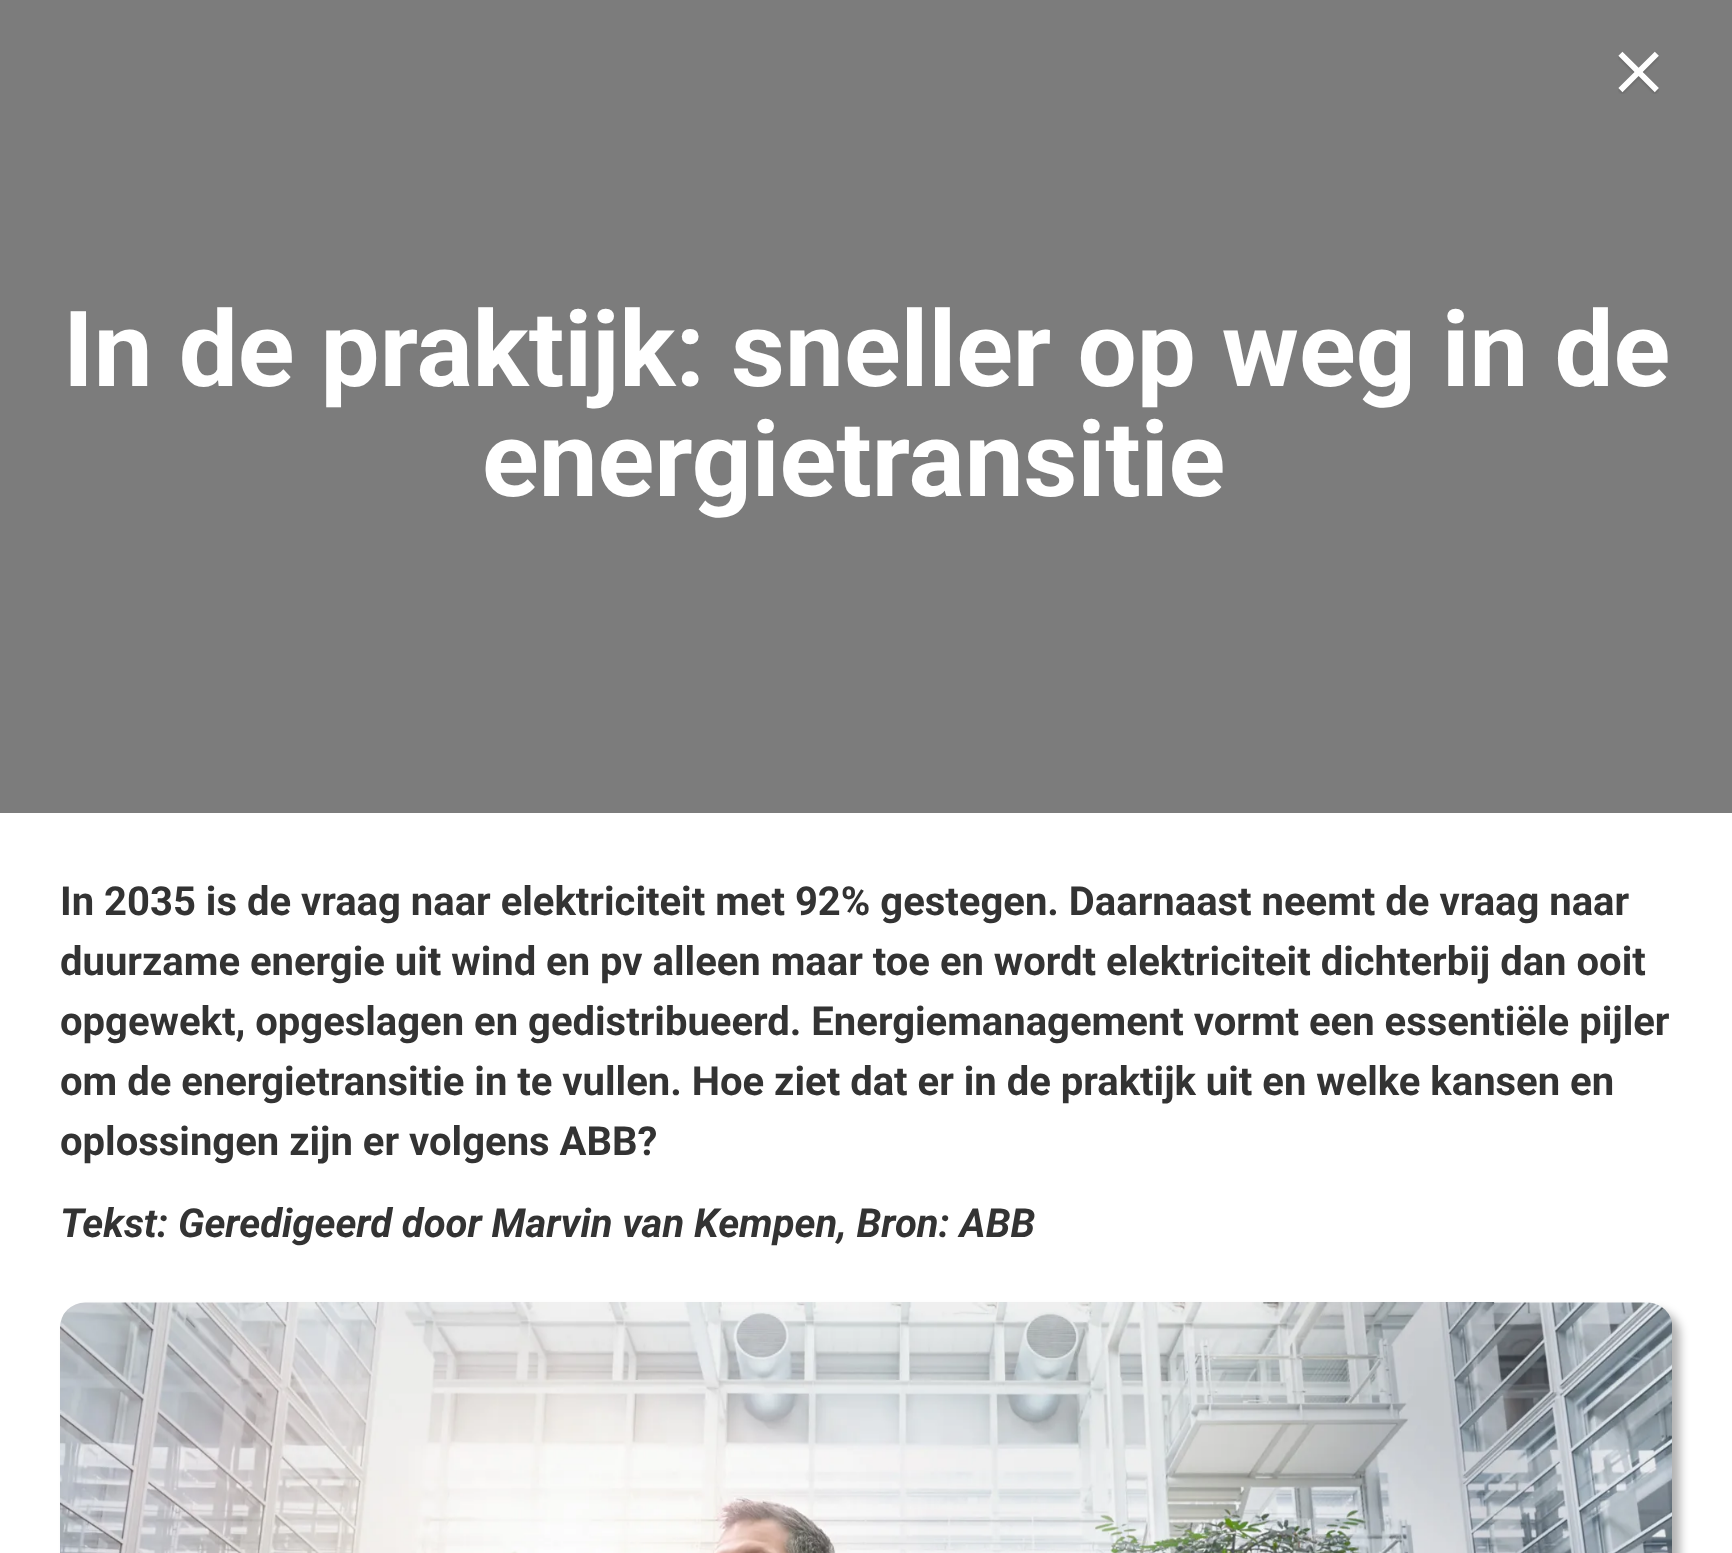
async function draw(canvas) {
	canvas.width = 1732;
	canvas.height = 1553;
	const c = canvas.getContext('2d');
	c.miterLimit = 4;
	c.fontKerning = 'normal';
	async function loadImage(src) {
		const img = new Image();
		img.src = src;
		await img.decode();
		return img;
	}

	c.fillStyle = '#fff';
	c.fillRect(0, 0, 1732, 1553);
	c.fillStyle = '#7c7c7c';
	c.fillRect(0, 0, 1732, 813);
	c.drawImage(await loadImage('img1.png'), 1618, 51, 41, 43);
	c.font = 'bold 105px Roboto';
	c.fillStyle = '#fff';
	c.fillText('In de praktijk: sneller op weg in de', 63, 386);
	c.fillText('energietransitie', 482, 496);
	c.font = 'bold 40px Roboto';
	c.fillStyle = '#333';
	for (const [text, x, y] of [
		['In 2035 is de vraag naar elektriciteit met 92% gestegen. Daarnaast neemt de vraag naar', 60, 915],
		['duurzame energie uit wind en pv alleen maar toe en wordt elektriciteit dichterbij dan ooit', 60, 975],
		['opgewekt, opgeslagen en gedistribueerd. Energiemanagement vormt een essentiële pijler', 60, 1035],
		['om de energietransitie in te vullen. Hoe ziet dat er in de praktijk uit en welke kansen en', 60, 1095],
		['oplossingen zijn er volgens ABB?', 60, 1155],
	]) {
		c.fillText(text, x, y);
	}
	c.font = 'italic bold 40px Roboto';
	c.fillText('Tekst: Geredigeerd door Marvin van Kempen, Bron: ABB', 60, 1237);
	c.fillStyle = '#0000004d';
	c.filter = 'blur(5px)';
	c.beginPath();
	c.roundRect(68, 1310, 1612, 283, 25);
	c.fill();
	c.filter = 'none';
	c.drawImage(await loadImage('img2.png'), 60, 1302, 1612, 251);
}

draw(document.querySelector('canvas'));
